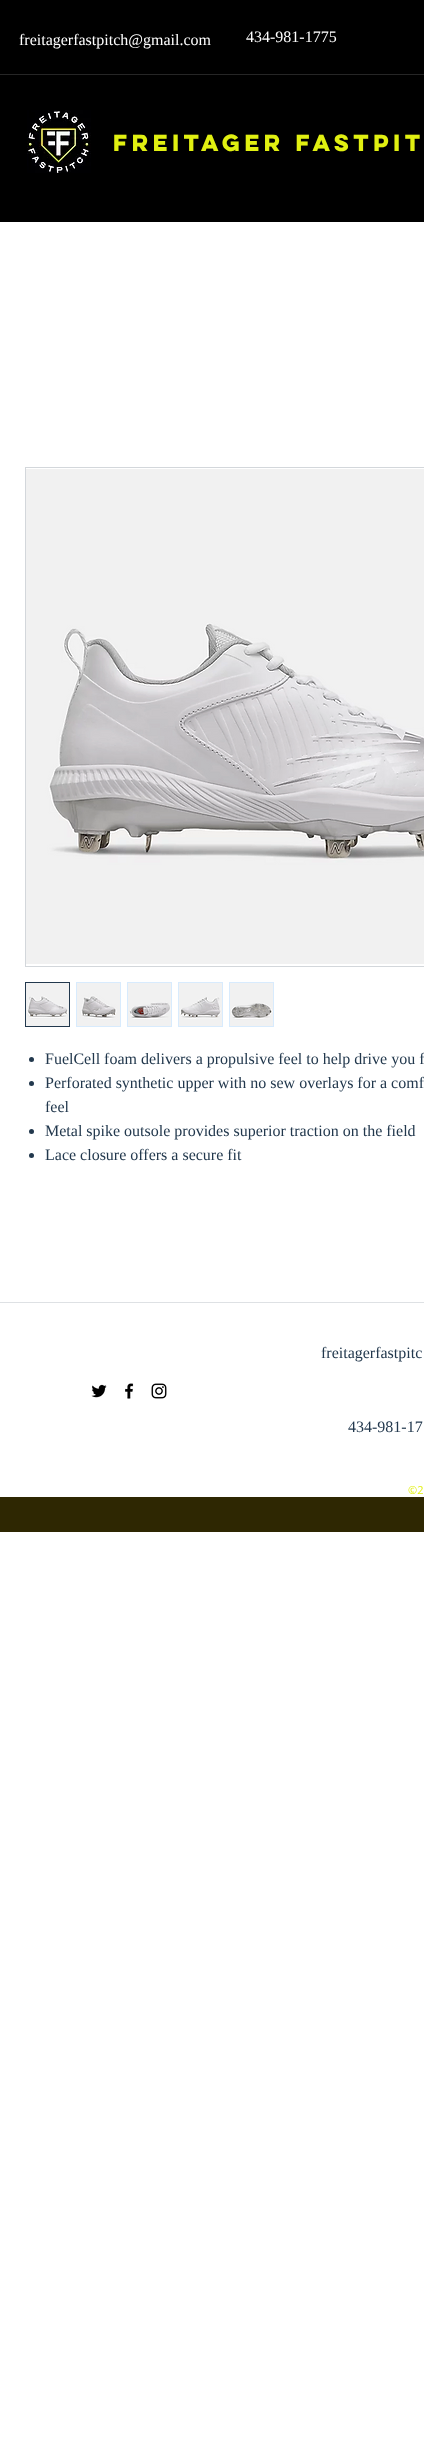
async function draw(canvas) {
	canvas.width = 424;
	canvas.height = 2456;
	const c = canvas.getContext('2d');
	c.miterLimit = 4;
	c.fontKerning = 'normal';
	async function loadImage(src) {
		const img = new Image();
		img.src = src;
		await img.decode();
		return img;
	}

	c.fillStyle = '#fff';
	c.fillRect(0, 0, 424, 2456);
	c.fillStyle = '#000';
	c.fillRect(0, 0, 424, 222);
	c.font = '16px Liberation Serif';
	c.fillStyle = '#fff';
	c.fillText('freitagerfastpitch@gmail.com', 19, 45);
	c.fillText('434-981-1775', 246, 42);
	c.drawImage(await loadImage('img1.png'), 27, 110, 64, 63);
	c.font = 'bold 21px "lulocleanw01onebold"';
	c.fillStyle = '#e1f011';
	c.fillText('Freitager Fastpit', 113, 151);
	c.fillStyle = '#262626';
	c.fillRect(0, 74, 424, 1);
	c.strokeStyle = '#d3d7db';
	c.strokeRect(25.5, 467.5, 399, 499);
	c.drawImage(await loadImage('img2.png'), 26, 469, 398, 495);
	c.strokeStyle = '#22384d';
	c.strokeRect(25.5, 982.5, 44, 44);
	c.drawImage(await loadImage('img3.png'), 26, 983, 43, 43);
	c.strokeStyle = '#d8ebfd';
	c.strokeRect(76.5, 982.5, 44, 44);
	c.drawImage(await loadImage('img4.png'), 77, 983, 43, 43);
	c.strokeRect(127.5, 982.5, 44, 44);
	c.drawImage(await loadImage('img5.png'), 128, 983, 43, 43);
	c.strokeRect(178.5, 982.5, 44, 44);
	c.drawImage(await loadImage('img6.png'), 179, 983, 43, 43);
	c.strokeRect(229.5, 982.5, 44, 44);
	c.drawImage(await loadImage('img7.png'), 230, 983, 43, 43);
	c.fillStyle = '#22384d';
	c.beginPath();
	c.arc(31.5, 1059.5, 2.5, 0, 2 * Math.PI);
	c.fill();
	c.font = '16px Liberation Serif';
	c.fillText('FuelCell foam delivers a propulsive feel to help drive you f', 45, 1064);
	c.beginPath();
	c.arc(31.5, 1083.5, 2.5, 0, 2 * Math.PI);
	c.fill();
	c.fillText('Perforated synthetic upper with no sew overlays for a comf', 45, 1088);
	c.fillText('feel', 45, 1112);
	c.beginPath();
	c.arc(31.5, 1131.5, 2.5, 0, 2 * Math.PI);
	c.fill();
	c.fillText('Metal spike outsole provides superior traction on the field', 45, 1136);
	c.beginPath();
	c.arc(31.5, 1155.5, 2.5, 0, 2 * Math.PI);
	c.fill();
	c.fillText('Lace closure offers a secure fit', 45, 1160);
	c.fillStyle = '#dee1e4';
	c.fillRect(0, 1302, 424, 1);
	c.fillStyle = '#22384d';
	c.fillText('freitagerfastpitc', 321, 1358);
	c.drawImage(await loadImage('img8.png'), 91, 1384, 16, 14);
	c.drawImage(await loadImage('img9.png'), 125, 1383, 9, 16);
	c.drawImage(await loadImage('img10.png'), 151, 1383, 16, 16);
	c.fillText('434-981-17', 348, 1432);
	c.font = '11px Open Sans';
	c.fillStyle = '#e1f011';
	c.fillText('©2', 408, 1494);
	c.fillStyle = '#2e2702';
	c.fillRect(0, 1497, 424, 35);
}

draw(document.querySelector('canvas'));
